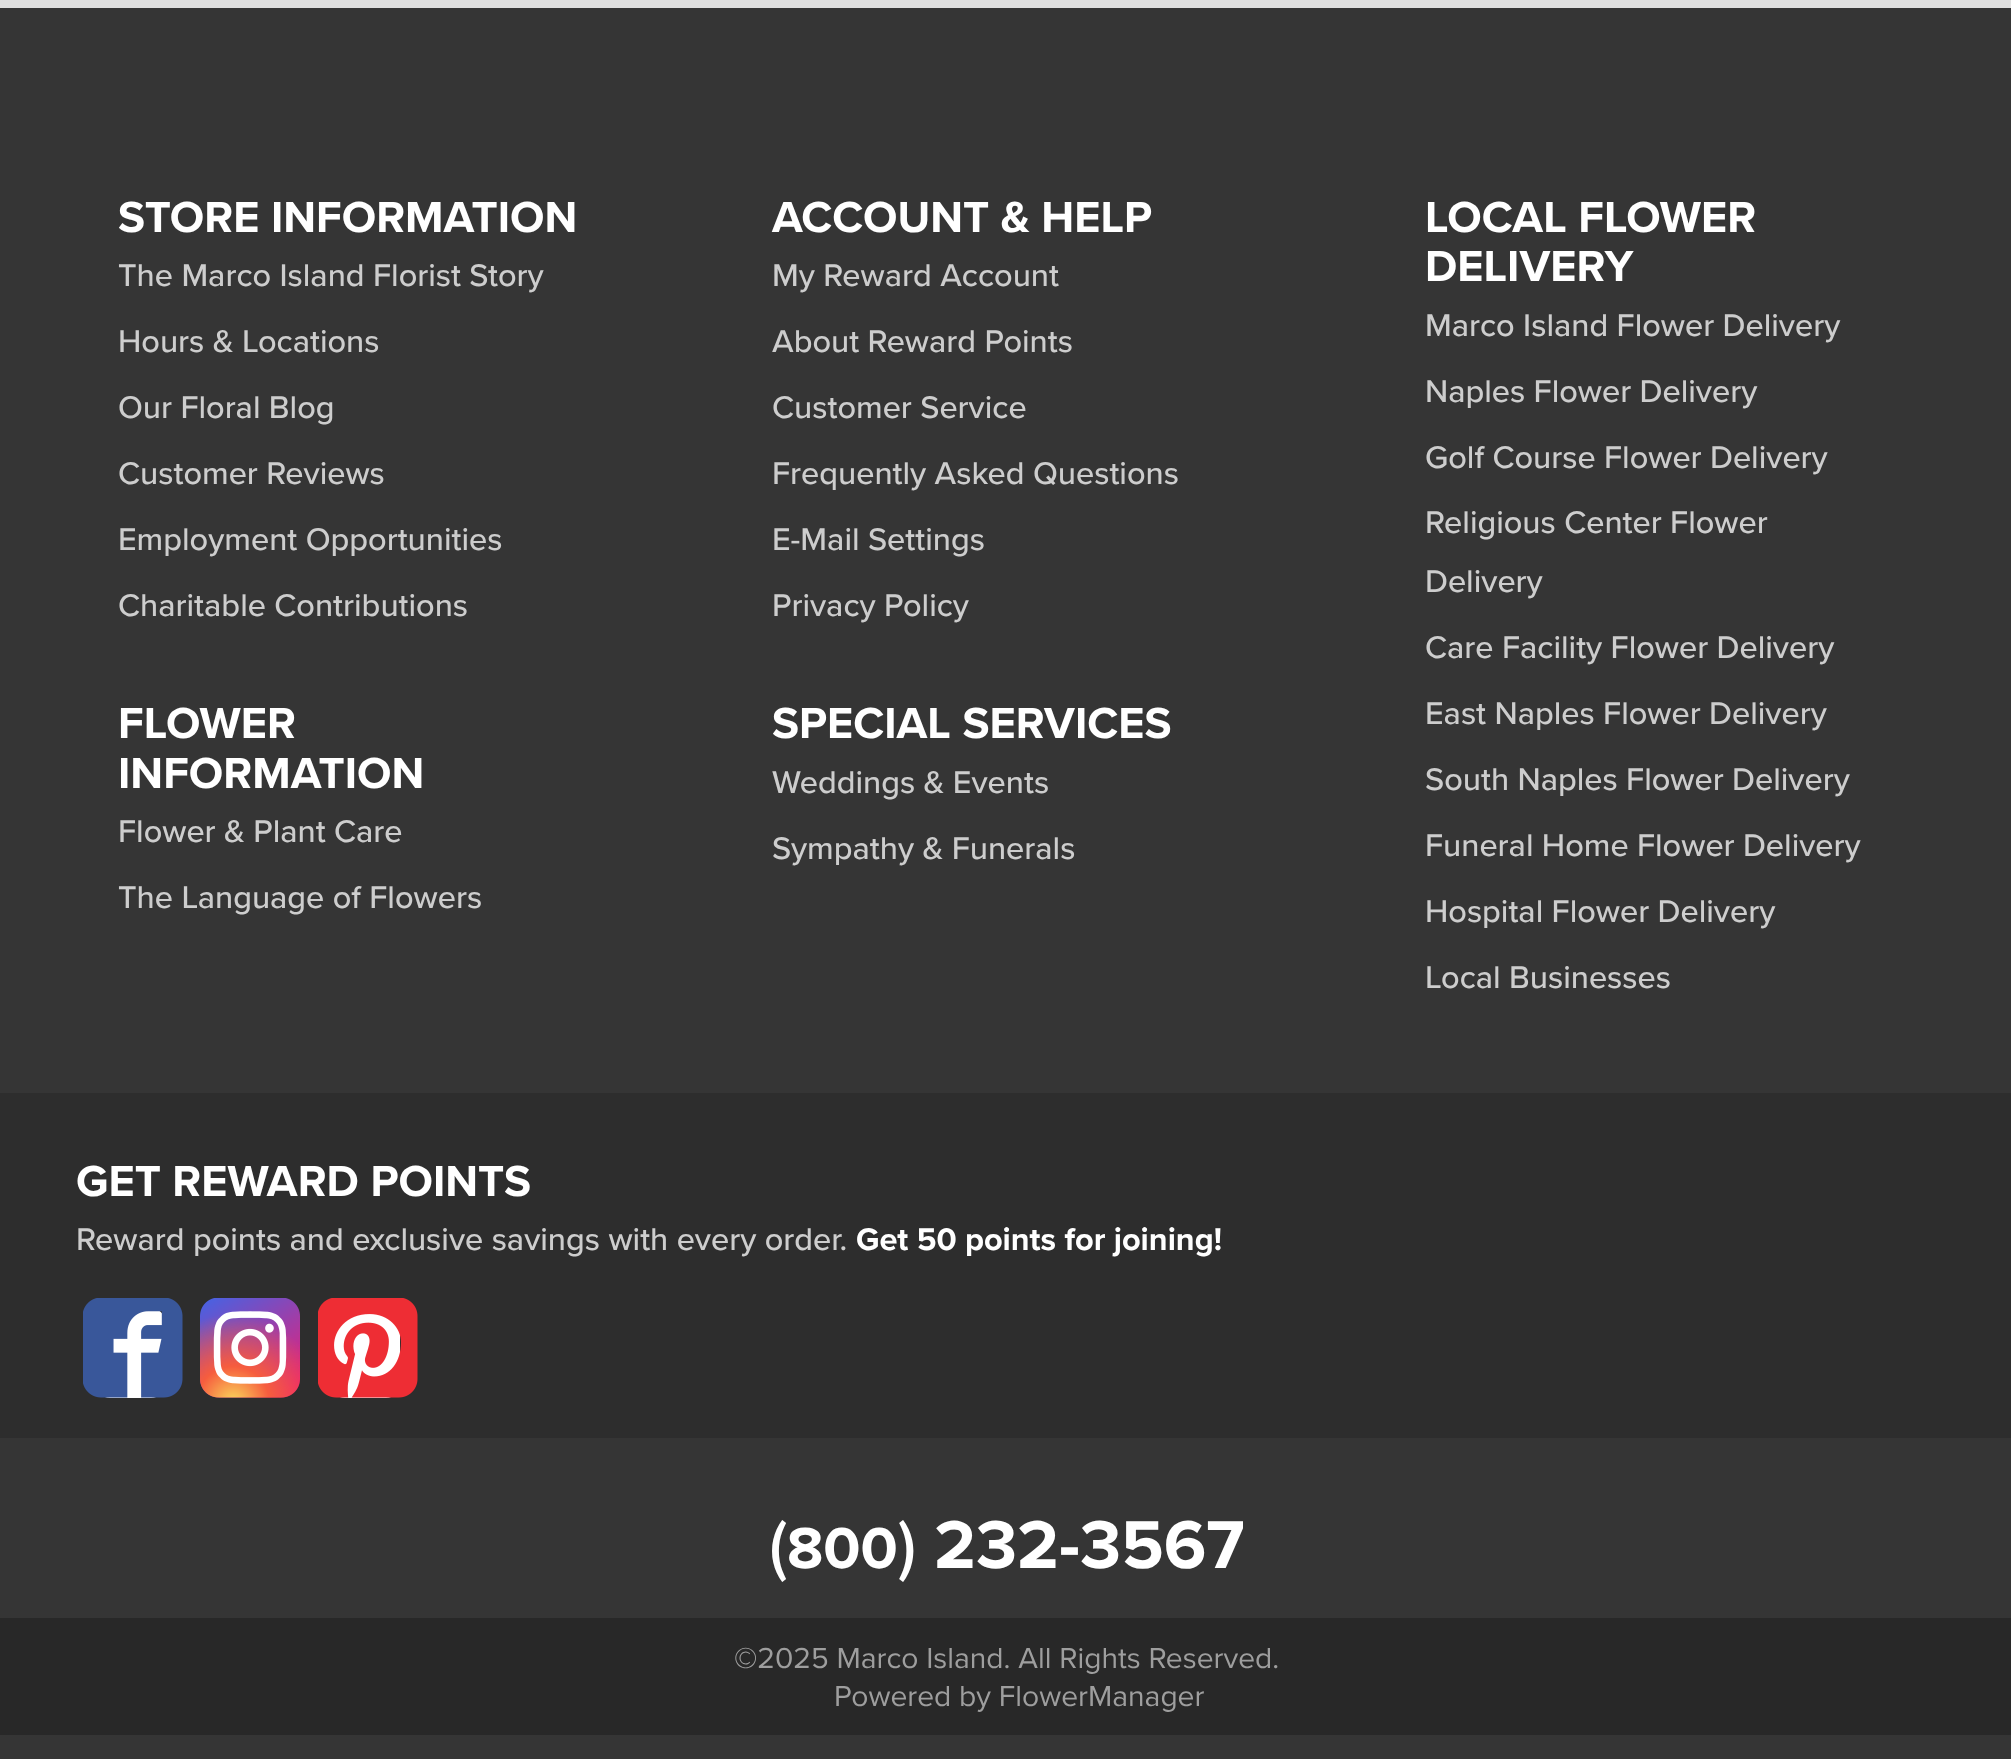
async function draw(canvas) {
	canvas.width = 2011;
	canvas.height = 1759;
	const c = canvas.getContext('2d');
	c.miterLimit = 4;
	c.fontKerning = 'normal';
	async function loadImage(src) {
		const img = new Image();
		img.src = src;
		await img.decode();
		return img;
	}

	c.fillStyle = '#fff';
	c.fillRect(0, 0, 2011, 1759);
	c.strokeStyle = '#dfdfdf';
	c.lineWidth = 13;
	c.strokeRect(-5.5, 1.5, 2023, 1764);
	c.fillStyle = '#353535';
	c.fillRect(0, 8, 2011, 1751);
	c.font = 'bold 45px Proxima Nova';
	c.fillStyle = '#fff';
	c.fillText('STORE INFORMATION', 118, 232);
	c.font = '500 32.5px Proxima Nova';
	c.fillStyle = '#cdcdcd';
	for (const [text, x, y] of [
		['The Marco Island Florist Story', 118, 286],
		['Hours & Locations', 118, 352],
		['Our Floral Blog', 118, 418],
		['Customer Reviews', 118, 484],
		['Employment Opportunities', 118, 550],
		['Charitable Contributions', 118, 616],
	]) {
		c.fillText(text, x, y);
	}
	c.font = 'bold 45px Proxima Nova';
	c.fillStyle = '#fff';
	c.fillText('FLOWER', 118, 738);
	c.fillText('INFORMATION', 118, 788);
	c.font = '500 32.5px Proxima Nova';
	c.fillStyle = '#cdcdcd';
	c.fillText('Flower & Plant Care', 118, 842);
	c.fillText('The Language of Flowers', 118, 908);
	c.font = 'bold 45px Proxima Nova';
	c.fillStyle = '#fff';
	c.fillText('ACCOUNT & HELP', 772, 232);
	c.font = '500 32.5px Proxima Nova';
	c.fillStyle = '#cdcdcd';
	for (const [text, x, y] of [
		['My Reward Account', 772, 286],
		['About Reward Points', 772, 352],
		['Customer Service', 772, 418],
		['Frequently Asked Questions', 772, 484],
		['E-Mail Settings', 772, 550],
		['Privacy Policy', 772, 616],
	]) {
		c.fillText(text, x, y);
	}
	c.font = 'bold 45px Proxima Nova';
	c.fillStyle = '#fff';
	c.fillText('SPECIAL SERVICES', 772, 738);
	c.font = '500 32.5px Proxima Nova';
	c.fillStyle = '#cdcdcd';
	c.fillText('Weddings & Events', 772, 793);
	c.fillText('Sympathy & Funerals', 772, 859);
	c.font = 'bold 45px Proxima Nova';
	c.fillStyle = '#fff';
	c.fillText('LOCAL FLOWER', 1425, 232);
	c.fillText('DELIVERY', 1425, 281);
	c.font = '500 32.5px Proxima Nova';
	c.fillStyle = '#cdcdcd';
	for (const [text, x, y] of [
		['Marco Island Flower Delivery', 1425, 336],
		['Naples Flower Delivery', 1425, 402],
		['Golf Course Flower Delivery', 1425, 468],
		['Religious Center Flower', 1425, 533],
		['Delivery', 1425, 592],
		['Care Facility Flower Delivery', 1425, 658],
		['East Naples Flower Delivery', 1425, 724],
		['South Naples Flower Delivery', 1425, 790],
		['Funeral Home Flower Delivery', 1425, 856],
		['Hospital Flower Delivery', 1425, 922],
		['Local Businesses', 1425, 988],
	]) {
		c.fillText(text, x, y);
	}
	c.fillStyle = '#2d2d2d';
	c.fillRect(0, 1093, 2011, 345);
	c.font = 'bold 45px Proxima Nova';
	c.fillStyle = '#fff';
	c.fillText('GET REWARD POINTS', 76, 1196);
	c.font = '500 32.5px Proxima Nova';
	c.fillStyle = '#cdcdcd';
	c.fillText('Reward points and exclusive savings with every order.', 76, 1250);
	c.font = 'bold 32.5px Proxima Nova';
	c.fillStyle = '#fff';
	c.fillText('Get 50 points for joining!', 856, 1250);
	c.drawImage(await loadImage('img1.png'), 83, 1298, 100, 100);
	c.drawImage(await loadImage('img2.png'), 200, 1298, 100, 100);
	c.drawImage(await loadImage('img3.png'), 318, 1298, 100, 100);
	c.font = '500 70px Proxima Nova';
	c.fillText('(', 769, 1568);
	c.font = 'bold 60px Proxima Nova';
	c.fillText('800', 787, 1568);
	c.font = '500 70px Proxima Nova';
	c.fillText(')', 898, 1568);
	c.font = 'bold 70px Proxima Nova';
	c.fillText('232-3567', 934, 1568);
	c.fillStyle = '#282828';
	c.fillRect(0, 1618, 2011, 117);
	c.font = '30px Proxima Nova';
	c.fillStyle = '#9e9e9e';
	c.fillText('©2025 Marco Island. All Rights Reserved.', 734, 1668);
	c.fillText('Powered by FlowerManager', 834, 1706);
}

draw(document.querySelector('canvas'));
